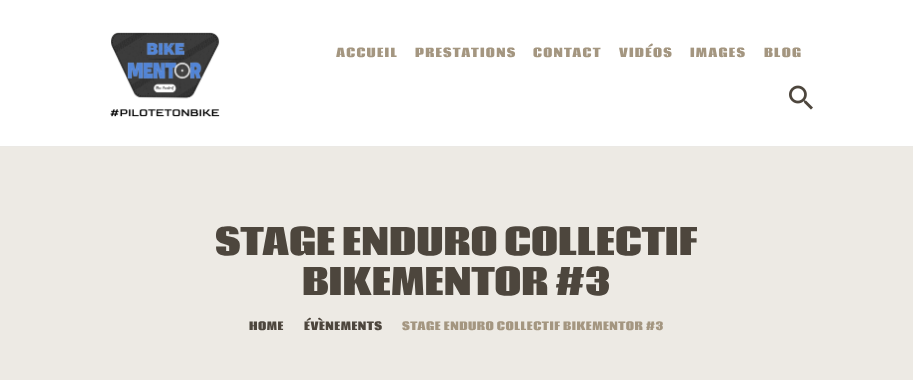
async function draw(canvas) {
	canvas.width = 913;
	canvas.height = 380;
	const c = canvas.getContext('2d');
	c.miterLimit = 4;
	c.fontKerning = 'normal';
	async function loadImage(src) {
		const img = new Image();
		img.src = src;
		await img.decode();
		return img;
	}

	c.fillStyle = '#fff';
	c.fillRect(0, 0, 913, 380);
	c.fillStyle = '#ebe9e5';
	c.fillRect(0, 146, 913, 1);
	c.drawImage(await loadImage('img1.png'), 110, 32, 110, 85);
	c.letterSpacing = '1.25px';
	c.font = '800 12px Coda';
	c.fillStyle = '#a49680';
	for (const [text, x, y] of [
		['ACCUEIL', 336, 57],
		['PRESTATIONS', 415, 57],
		['CONTACT', 533, 57],
		['VIDÉOS', 619, 57],
		['IMAGES', 690, 57],
		['BLOG', 764, 57],
	]) {
		c.fillText(text, x, y);
	}
	c.drawImage(await loadImage('img2.png'), 789, 85, 24, 25);
	c.fillStyle = '#edeae4';
	c.fillRect(0, 147, 913, 233);
	c.letterSpacing = '0px';
	c.font = '800 36px Coda';
	c.fillStyle = '#4d463d';
	c.fillText('STAGE ENDURO COLLECTIF', 215, 255);
	c.fillText('BIKEMENTOR #3', 302, 295);
	c.letterSpacing = '0.5px';
	c.font = '800 11px Coda';
	c.fillText('HOME', 249, 330);
	c.fillText('ÉVÈNEMENTS', 304, 330);
	c.fillStyle = '#a49680';
	c.fillText('STAGE ENDURO COLLECTIF BIKEMENTOR #3', 402, 330);
}

draw(document.querySelector('canvas'));
